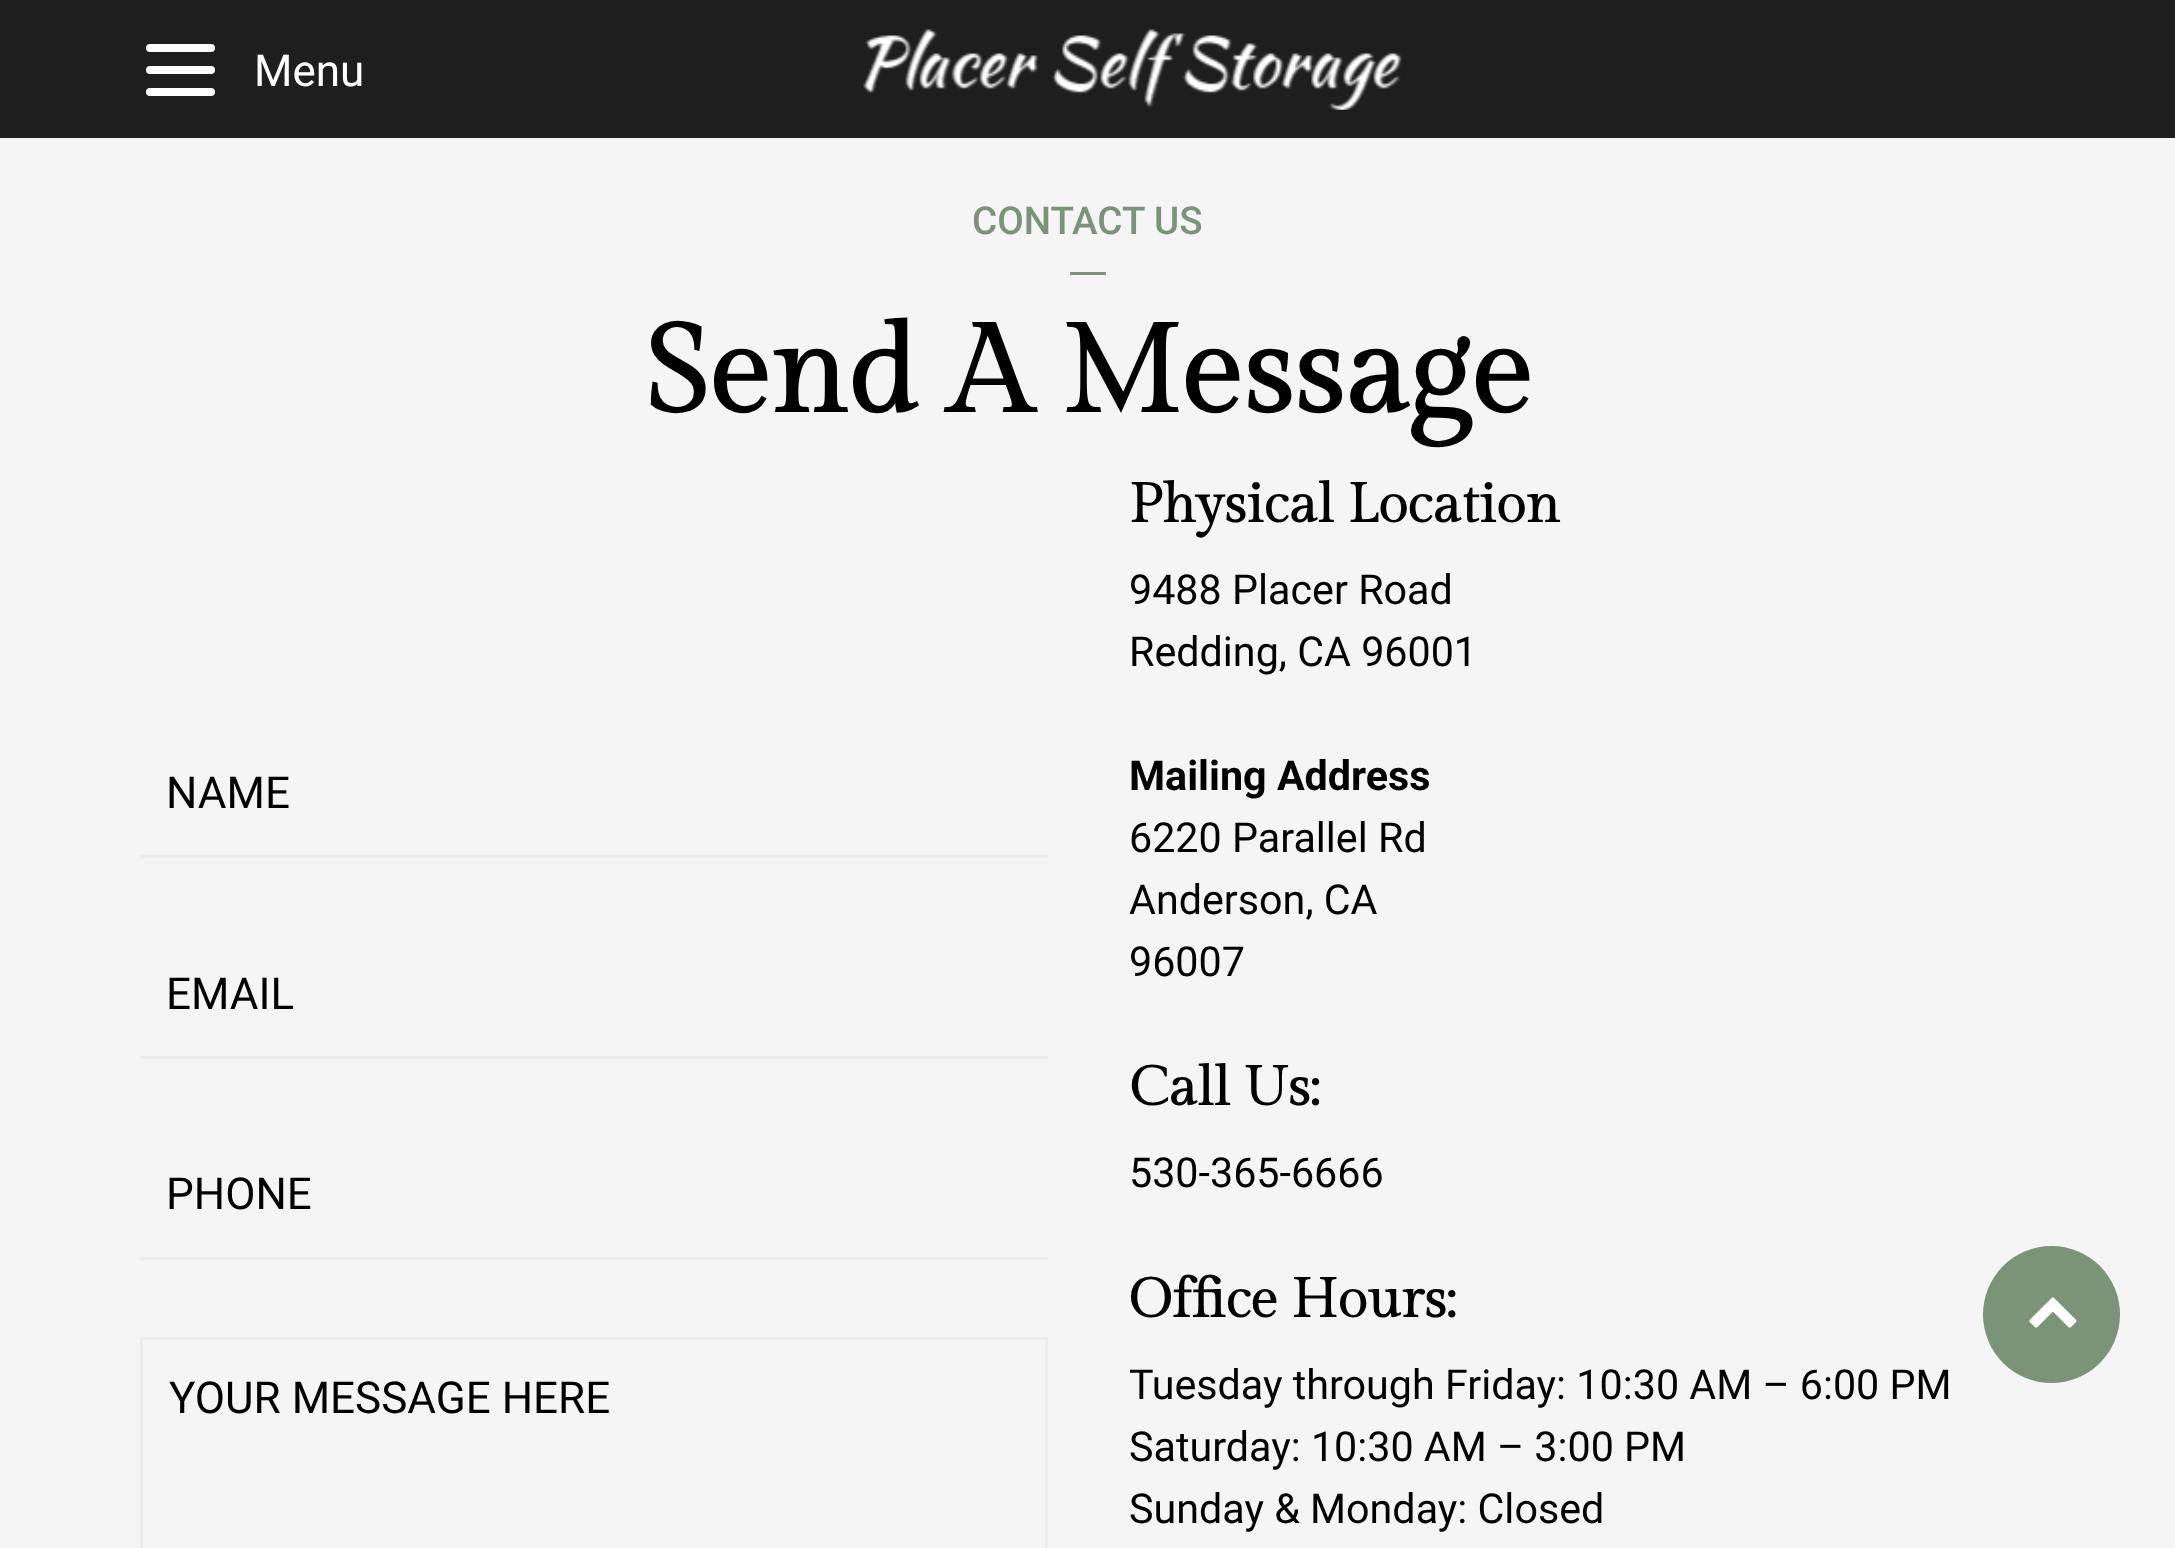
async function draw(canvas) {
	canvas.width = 2175;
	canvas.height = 1548;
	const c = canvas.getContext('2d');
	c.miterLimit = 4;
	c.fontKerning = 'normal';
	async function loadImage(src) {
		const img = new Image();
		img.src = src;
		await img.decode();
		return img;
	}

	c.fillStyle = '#f5f5f5';
	c.fillRect(0, 0, 2175, 1548);
	c.fillStyle = '#1e1e1e';
	c.fillRect(0, 0, 2175, 138);
	c.fillStyle = '#fff';
	c.beginPath();
	c.roundRect(146, 66, 69, 8, 4);
	c.fill();
	c.beginPath();
	c.roundRect(146, 44, 69, 8, 4);
	c.fill();
	c.beginPath();
	c.roundRect(146, 88, 69, 8, 4);
	c.fill();
	c.font = '44px Roboto';
	c.fillText('Menu', 254, 86);
	c.drawImage(await loadImage('img1.png'), 863, 29, 540, 81);
	c.font = '500 38.5px Roboto';
	c.fillStyle = '#7b9378';
	c.fillText('CONTACT US', 972, 234);
	c.fillRect(1070, 272, 36, 3);
	c.font = 'bold 123.75px Gilda Display';
	c.fillStyle = '#000';
	c.fillText('Send A Message', 644, 412);
	c.fillStyle = '#ededed';
	c.fillRect(140, 855, 908, 3);
	c.font = '44px Roboto';
	c.fillStyle = '#000';
	c.fillText('NAME', 166, 808);
	c.fillStyle = '#ededed';
	c.fillRect(140, 1056, 908, 3);
	c.fillStyle = '#000';
	c.fillText('EMAIL', 166, 1009);
	c.fillStyle = '#ededed';
	c.fillRect(140, 1257, 908, 3);
	c.fillStyle = '#000';
	c.fillText('PHONE', 166, 1209);
	c.strokeStyle = '#ededed';
	c.lineWidth = 3;
	c.strokeRect(141.5, 1338.5, 905, 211);
	c.fillText('YOUR MESSAGE HERE', 169, 1413);
	c.font = 'bold 55px Gilda Display';
	c.fillText('Physical Location', 1129, 522);
	c.font = '41.25px Roboto';
	c.fillText('9488 Placer Road', 1129, 604);
	c.fillText('Redding, CA 96001', 1129, 666);
	c.font = 'bold 41.25px Roboto';
	c.fillText('Mailing Address', 1129, 790);
	c.font = '41.25px Roboto';
	for (const [text, x, y] of [
		['6220 Parallel Rd', 1129, 852],
		['Anderson, CA', 1129, 914],
		['96007', 1129, 976],
	]) {
		c.fillText(text, x, y);
	}
	c.font = 'bold 55px Gilda Display';
	c.fillText('Call Us:', 1129, 1105);
	c.font = '41.25px Roboto';
	c.fillText('530-365-6666', 1129, 1187);
	c.font = 'bold 55px Gilda Display';
	c.fillText('Office Hours:', 1129, 1317);
	c.font = '41.25px Roboto';
	for (const [text, x, y] of [
		['Tuesday through Friday: 10:30 AM – 6:00 PM', 1129, 1399],
		['Saturday: 10:30 AM – 3:00 PM', 1129, 1461],
		['Sunday & Monday: Closed', 1129, 1523],
	]) {
		c.fillText(text, x, y);
	}
	c.fillStyle = '#7b9378';
	c.beginPath();
	c.arc(2051.5, 1314.5, 68.5, 0, 2 * Math.PI);
	c.fill();
	c.drawImage(await loadImage('img2.png'), 2029, 1297, 48, 31);
}

draw(document.querySelector('canvas'));
